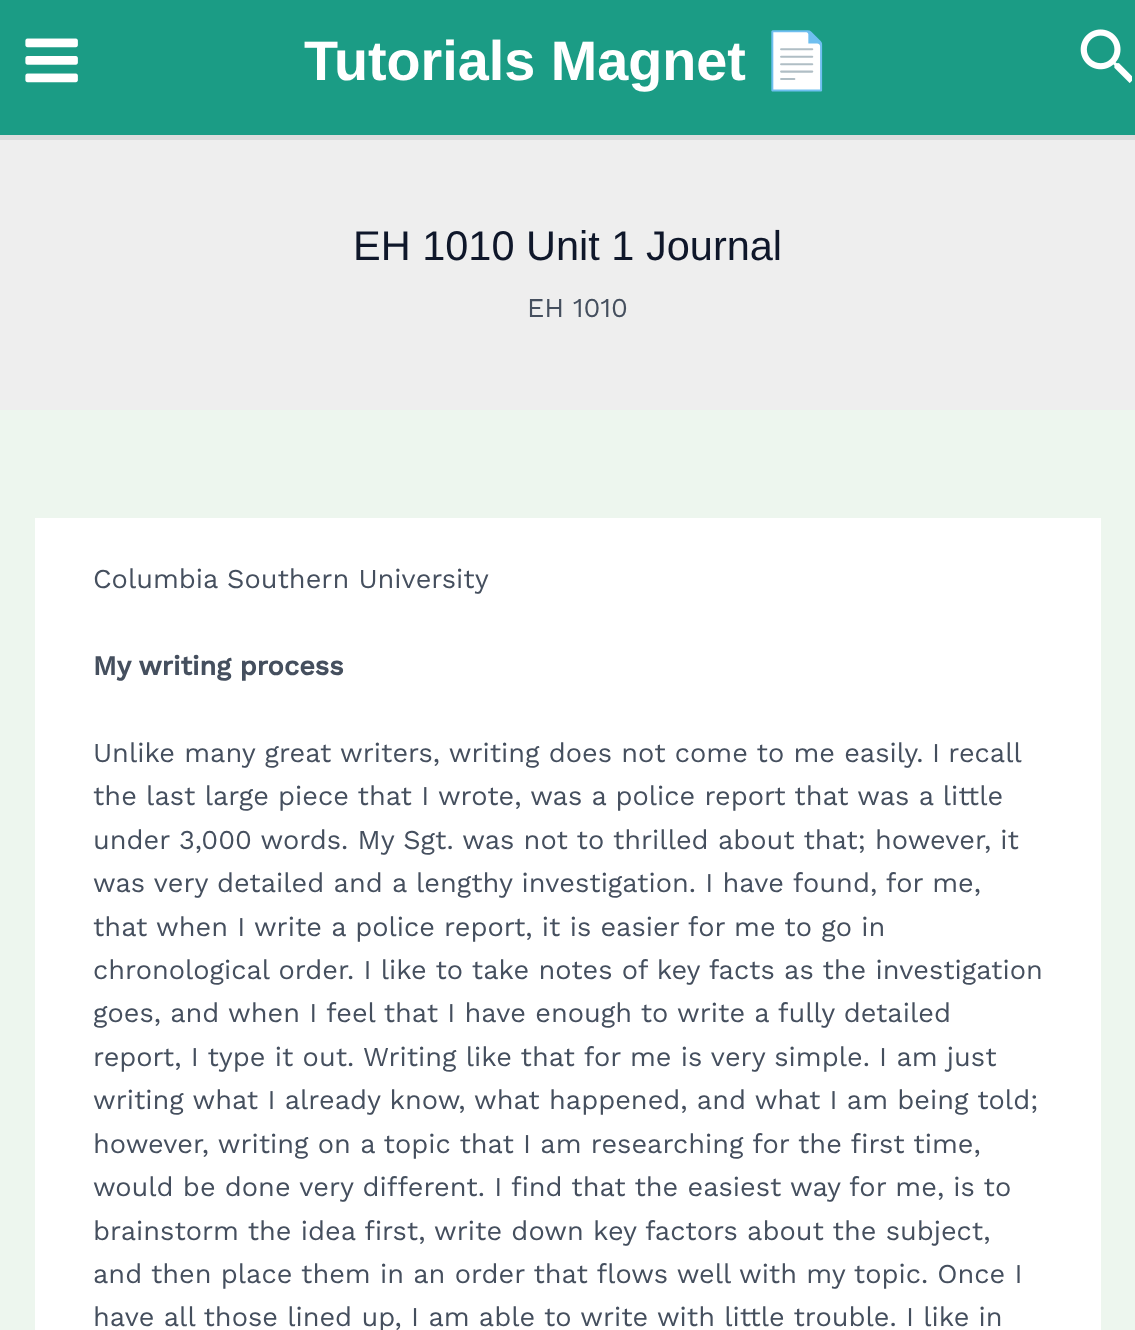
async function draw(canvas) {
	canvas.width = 1135;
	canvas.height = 1330;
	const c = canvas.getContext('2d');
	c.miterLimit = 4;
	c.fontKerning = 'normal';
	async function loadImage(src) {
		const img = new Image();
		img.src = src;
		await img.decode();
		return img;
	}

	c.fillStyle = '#edf6ee';
	c.fillRect(0, 0, 1135, 1330);
	c.fillStyle = '#1b9c85';
	c.fillRect(0, 0, 1135, 135);
	c.fillStyle = '#ddd';
	c.fillRect(0, 135, 1135, 5);
	c.drawImage(await loadImage('img1.png'), 25, 38, 53, 45);
	c.font = 'bold 55.75px Liberation Sans';
	c.fillStyle = '#fff';
	c.fillText('Tutorials Magnet', 304, 80);
	c.font = 'bold 55.75px Noto Color Emoji';
	c.fillText('📄', 762, 80);
	c.drawImage(await loadImage('img2.png'), 1080, 29, 52, 54);
	c.fillStyle = '#eee';
	c.fillRect(0, 140, 1135, 270);
	c.font = '41.5px Liberation Sans';
	c.fillStyle = '#0f172a';
	c.fillText('EH 1010 Unit 1 Journal', 353, 260);
	c.font = '27.15px Work Sans';
	c.fillStyle = '#454f5e';
	c.fillText('EH 1010', 527, 317);
	c.fillStyle = '#fff';
	c.fillRect(35, 518, 1066, 812);
	c.fillStyle = '#454f5e';
	c.fillText('Columbia Southern University', 93, 588);
	c.font = 'bold 27.15px Work Sans';
	c.fillText('My writing process', 93, 675);
	c.font = '27.15px Work Sans';
	c.fillText('Unlike many great writers, writing does not come to me easily.', 93, 762);
	c.wordSpacing = '-1px';
	c.fillText('I recall', 932, 762);
	c.wordSpacing = '0px';
	for (const [text, x, y] of [
		['the last large piece that I wrote, was a police report that was a little', 93, 805],
		['under 3,000 words. My Sgt. was not to thrilled about that; however, it', 93, 849],
		['was very detailed and a lengthy investigation. I have found, for me,', 93, 892],
		['that when I write a police report, it is easier for me to go in', 93, 936],
		['chronological order. I like to take notes of key facts as the investigation', 93, 979],
		['goes, and when I feel that I have enough to write a fully detailed', 93, 1022],
		['report, I type it out.', 93, 1066],
		['Writing like that for me is very simple. I am just', 363, 1066],
		['writing what I already know, what happened, and what I am being told;', 93, 1109],
		['however, writing on a topic that I am researching for the first time,', 93, 1153],
		['would be done very different. I find that the easiest way for me, is to', 93, 1196],
		['brainstorm the idea first, write down key factors about the subject,', 93, 1240],
		['and then place them in an order that flows well with my topic. Once I', 93, 1283],
		['have all those lined up, I am able to write with little trouble. I like in', 93, 1326],
	]) {
		c.fillText(text, x, y);
	}
}

draw(document.querySelector('canvas'));
